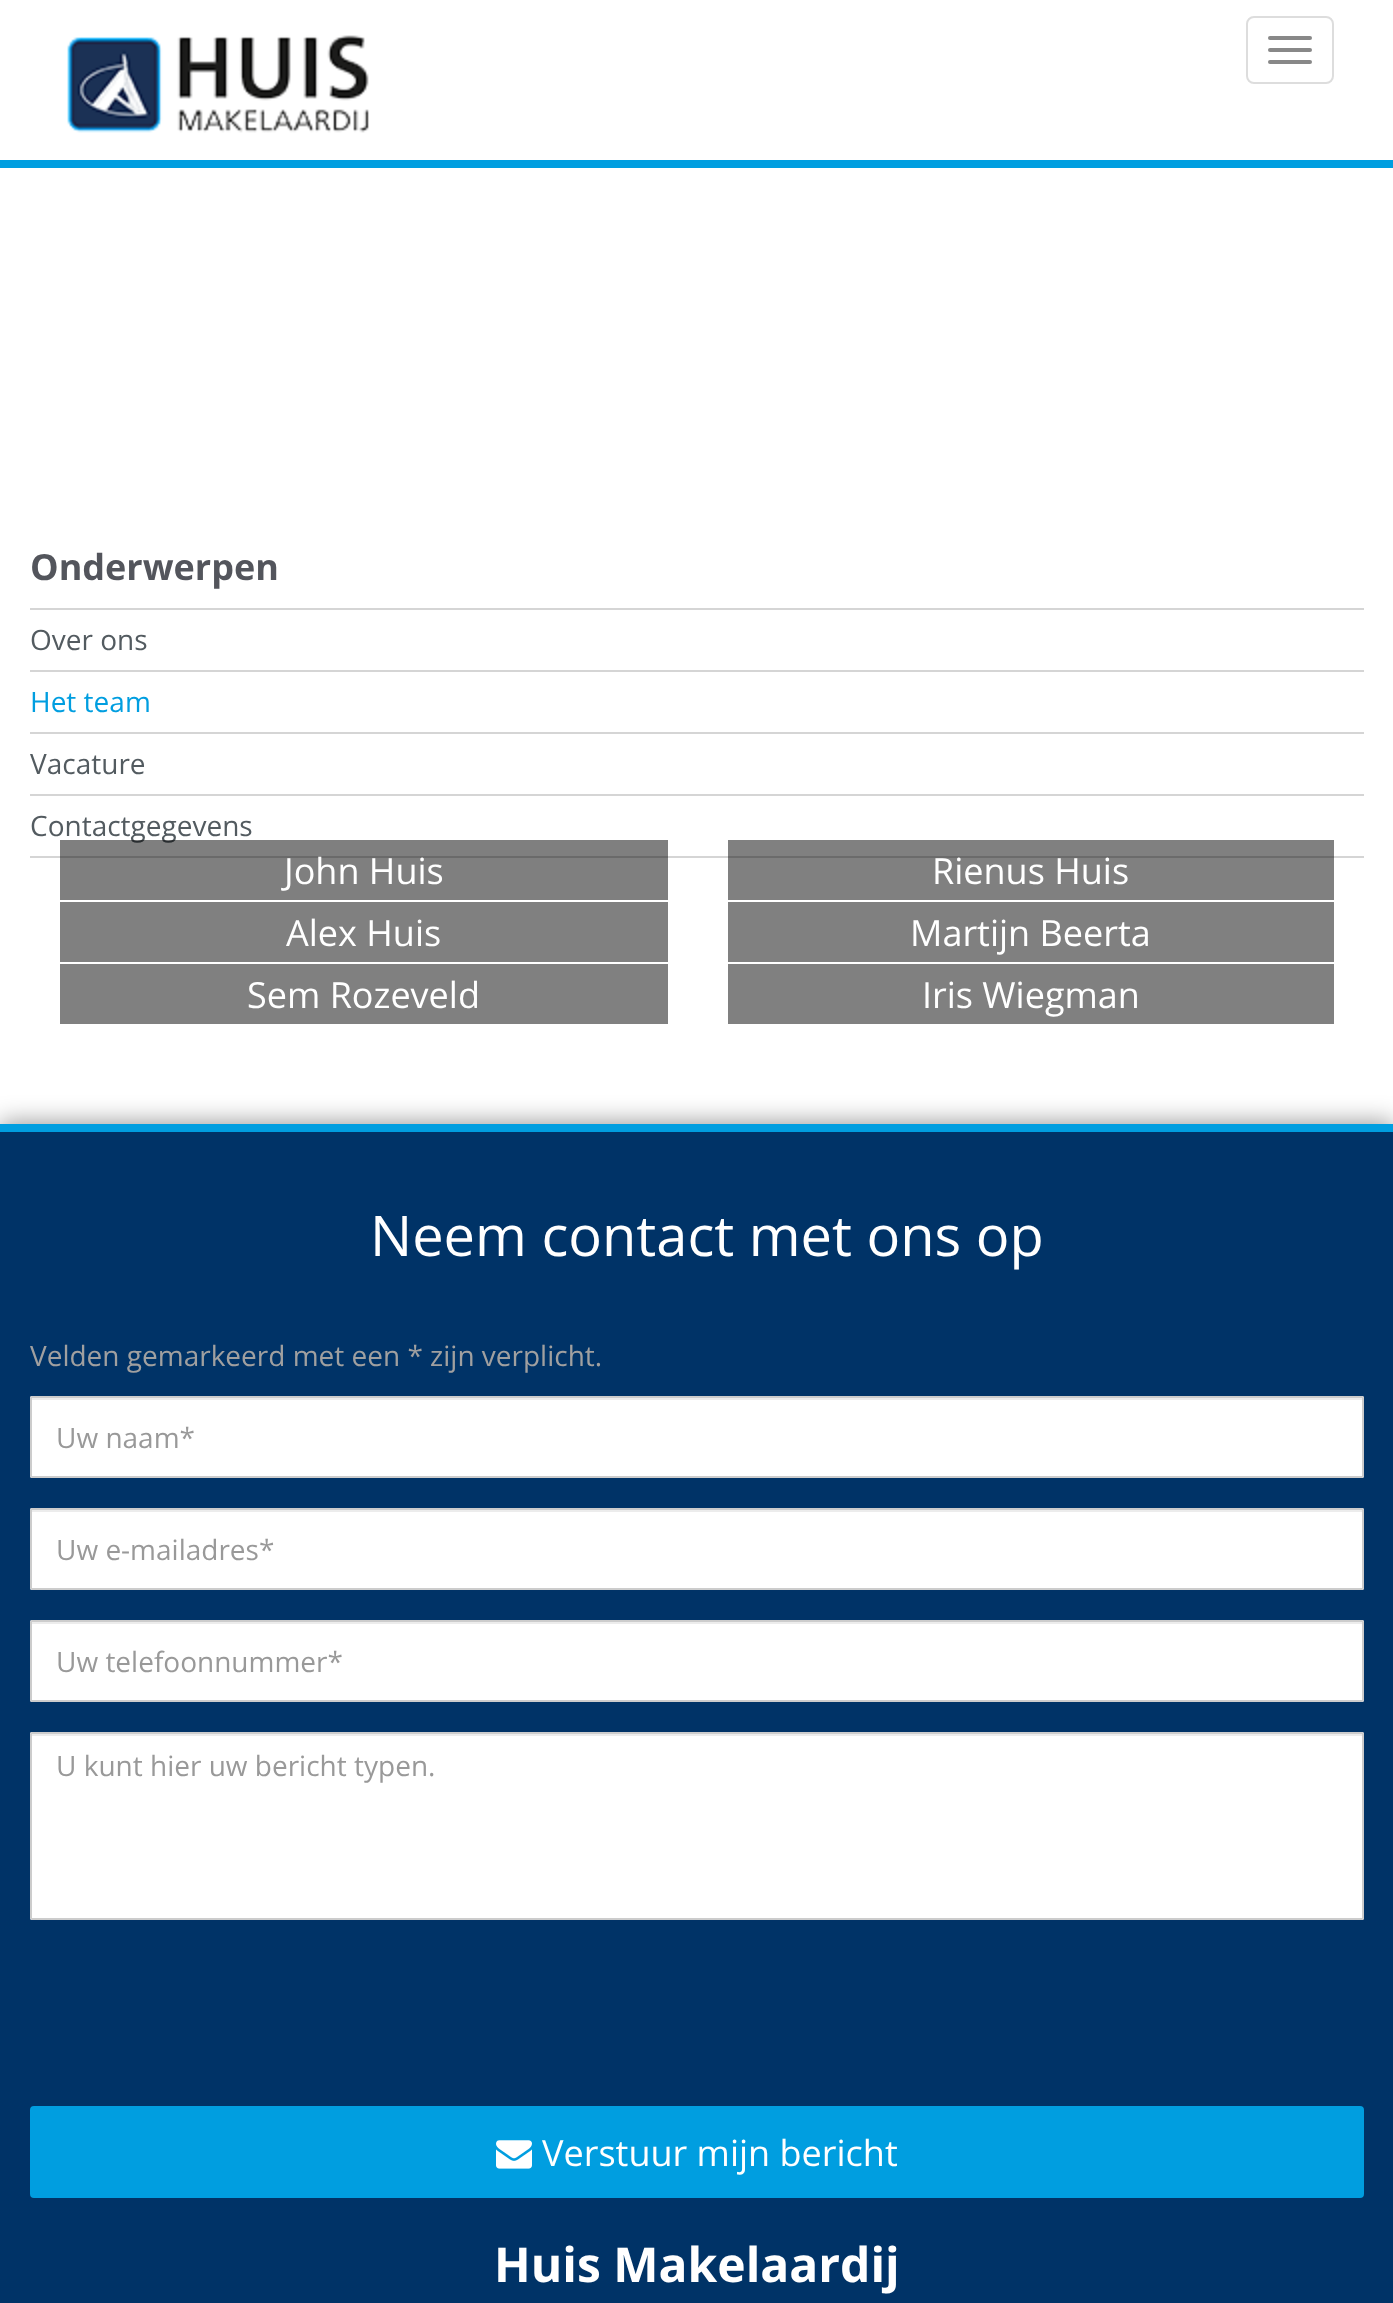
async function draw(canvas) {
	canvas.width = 1393;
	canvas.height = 2303;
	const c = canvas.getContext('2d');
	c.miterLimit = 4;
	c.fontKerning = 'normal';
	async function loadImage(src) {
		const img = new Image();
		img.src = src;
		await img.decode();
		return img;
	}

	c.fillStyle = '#fff';
	c.fillRect(0, 0, 1393, 2303);
	c.fillStyle = '#808080';
	c.fillRect(728, 840, 606, 60);
	c.fillStyle = '#009ee0';
	c.fillRect(0, 160, 1393, 8);
	c.drawImage(await loadImage('img1.png'), 67, 35, 302, 98);
	c.beginPath();
	c.roundRect(1247, 17, 86, 66, 7);
	c.strokeStyle = '#ddd';
	c.lineWidth = 2;
	c.stroke();
	c.fillStyle = '#888';
	c.beginPath();
	c.roundRect(1268, 36, 44, 4, 2);
	c.fill();
	c.beginPath();
	c.roundRect(1268, 48, 44, 4, 2);
	c.fill();
	c.beginPath();
	c.roundRect(1268, 60, 44, 4, 2);
	c.fill();
	c.font = 'bold 36px Open Sans';
	c.fillStyle = '#53555c';
	c.fillText('Onderwerpen', 30, 580);
	c.fillStyle = '#d5d5d5';
	c.fillRect(30, 608, 1334, 2);
	c.font = '28px Open Sans';
	c.fillStyle = '#535b60';
	c.fillText('Over ons', 30, 650);
	c.fillStyle = '#d5d5d5';
	c.fillRect(30, 670, 1334, 2);
	c.fillStyle = '#009ee0';
	c.fillText('Het team', 30, 712);
	c.fillStyle = '#d5d5d5';
	c.fillRect(30, 732, 1334, 2);
	c.fillStyle = '#535b60';
	c.fillText('Vacature', 30, 774);
	for (const [x, y, w, h, color] of [
		[30, 794, 1334, 2, '#d5d5d5'],
		[30, 856, 1334, 2, '#d5d5d5'],
		[728, 856, 606, 2, '#6b6b6b'],
	]) {
		c.fillStyle = color;
		c.fillRect(x, y, w, h);
	}
	c.fillStyle = '#535b60';
	c.fillText('Contactgegevens', 30, 836);
	c.fillStyle = '#00000080';
	c.fillRect(60, 840, 608, 60);
	c.font = '36px Open Sans';
	c.fillStyle = '#fff';
	c.fillText('John Huis', 284, 884);
	c.fillText('Rienus Huis', 932, 884);
	c.fillStyle = '#808080';
	c.fillRect(60, 902, 608, 60);
	c.fillStyle = '#fff';
	c.fillText('Alex Huis', 286, 946);
	c.fillStyle = '#808080';
	c.fillRect(728, 902, 606, 60);
	c.fillStyle = '#fff';
	c.fillText('Martijn Beerta', 910, 946);
	c.fillStyle = '#808080';
	c.fillRect(60, 964, 608, 60);
	c.fillStyle = '#fff';
	c.fillText('Sem Rozeveld', 247, 1008);
	c.fillStyle = '#808080';
	c.fillRect(728, 964, 606, 60);
	c.fillStyle = '#fff';
	c.fillText('Iris Wiegman', 922, 1008);
	c.fillStyle = '#00000066';
	c.filter = 'blur(12px)';
	c.beginPath();
	c.rect(0, 1122, 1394, 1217);
	c.fill();
	c.filter = 'none';
	c.fillStyle = '#003367';
	c.fillRect(0, 1132, 1393, 1171);
	c.fillStyle = '#009ee0';
	c.fillRect(0, 1124, 1393, 8);
	c.font = '56px Open Sans';
	c.fillStyle = '#fff';
	c.fillText('Neem contact met ons op', 370, 1256);
	c.font = '28px Open Sans';
	c.fillStyle = '#a0a0a0';
	c.fillText('Velden gemarkeerd met een * zijn verplicht.', 30, 1366);
	c.fillStyle = '#fff';
	c.beginPath();
	c.roundRect(30, 1396, 1334, 82, 2);
	c.fill();
	c.fillStyle = '#ececec';
	c.fillRect(32, 1398, 1330, 2);
	c.beginPath();
	c.roundRect(31, 1397, 1332, 80, 1);
	c.strokeStyle = '#ccc';
	c.stroke();
	c.fillStyle = '#999';
	c.fillText('Uw naam*', 56, 1448);
	c.fillStyle = '#fff';
	c.beginPath();
	c.roundRect(30, 1508, 1334, 82, 2);
	c.fill();
	c.fillStyle = '#ececec';
	c.fillRect(32, 1510, 1330, 2);
	c.beginPath();
	c.roundRect(31, 1509, 1332, 80, 1);
	c.stroke();
	c.fillStyle = '#999';
	c.fillText('Uw e-mailadres*', 56, 1560);
	c.fillStyle = '#fff';
	c.beginPath();
	c.roundRect(30, 1620, 1334, 82, 2);
	c.fill();
	c.fillStyle = '#ececec';
	c.fillRect(32, 1622, 1330, 2);
	c.beginPath();
	c.roundRect(31, 1621, 1332, 80, 1);
	c.stroke();
	c.fillStyle = '#999';
	c.fillText('Uw telefoonnummer*', 56, 1672);
	c.fillStyle = '#fff';
	c.beginPath();
	c.roundRect(30, 1732, 1334, 188, 2);
	c.fill();
	c.fillStyle = '#ececec';
	c.fillRect(32, 1734, 1330, 2);
	c.beginPath();
	c.roundRect(31, 1733, 1332, 186, 1);
	c.stroke();
	c.fillStyle = '#999';
	c.fillText('U kunt hier uw bericht typen.', 56, 1776);
	c.fillStyle = '#009ee0';
	c.beginPath();
	c.roundRect(31, 2107, 1332, 90, 3);
	c.fill();
	c.strokeStyle = '#009ee0';
	c.stroke();
	c.drawImage(await loadImage('img2.png'), 496, 2140, 36, 29);
	c.font = '36px Open Sans';
	c.fillStyle = '#fff';
	c.fillText('Verstuur mijn bericht', 542, 2166);
	c.font = 'bold 48px Open Sans';
	c.fillText('Huis Makelaardij', 494, 2282);
}

draw(document.querySelector('canvas'));
